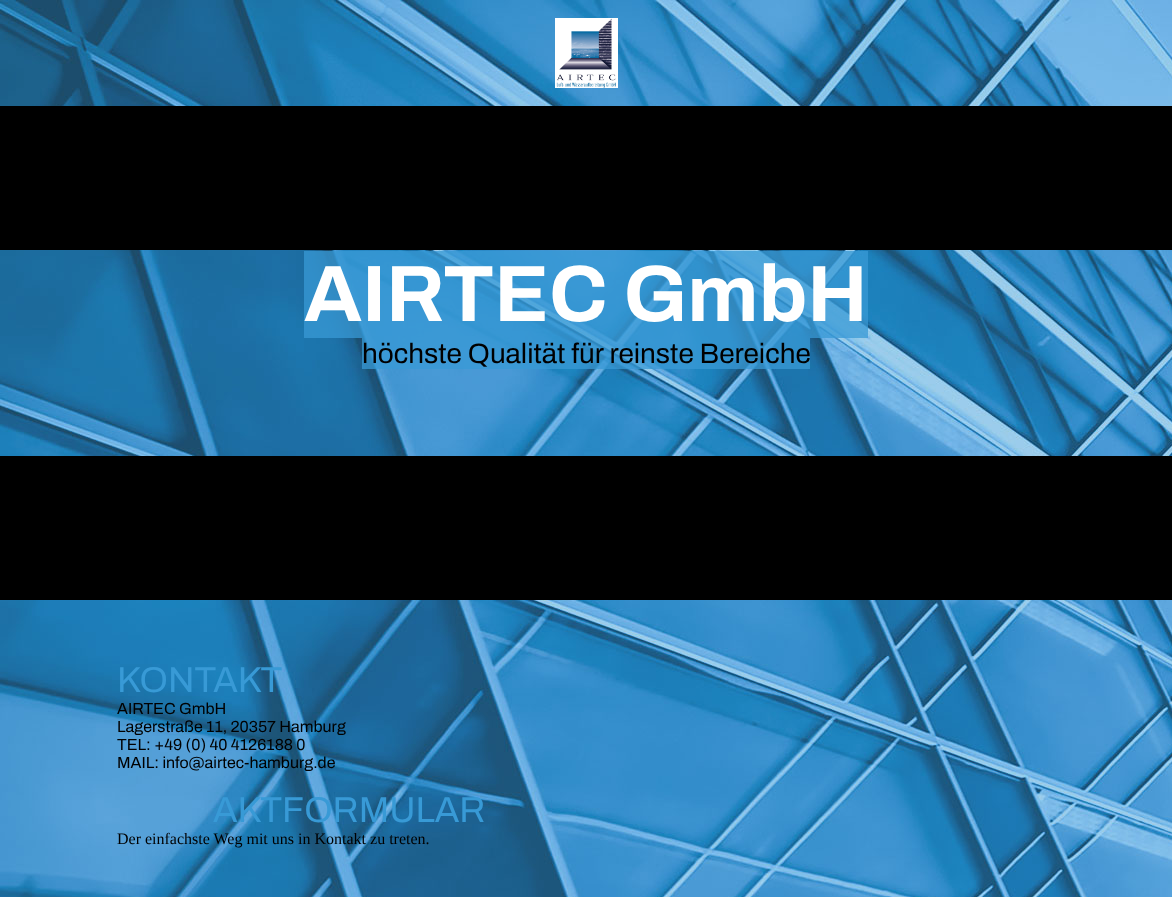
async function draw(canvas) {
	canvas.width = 1172;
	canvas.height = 897;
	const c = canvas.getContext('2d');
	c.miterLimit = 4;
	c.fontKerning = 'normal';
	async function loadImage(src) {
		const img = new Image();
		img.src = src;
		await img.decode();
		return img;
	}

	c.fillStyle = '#fff';
	c.fillRect(0, 0, 1172, 897);
	c.drawImage(await loadImage('img1.png'), 0, 0, 1172, 897);
	c.drawImage(await loadImage('img2.png'), 555, 18, 63, 70);
	c.fillStyle = '#000';
	c.fillRect(0, 106, 1172, 144);
	c.fillStyle = '#389ad6bf';
	c.fillRect(304, 251, 564, 87);
	c.font = 'bold 80px Archivo';
	c.fillStyle = '#fff';
	c.fillText('AIRTEC GmbH', 304, 321);
	c.fillStyle = '#389ad6bf';
	c.fillRect(362, 338, 448, 31);
	c.font = '28px Archivo';
	c.fillStyle = '#000';
	c.fillText('höchste Qualität für reinste Bereiche', 362, 363);
	c.fillRect(0, 456, 1172, 144);
	c.font = '36px Archivo';
	c.fillStyle = '#389ad6';
	c.fillText('KONTAKT', 117, 692);
	c.font = '16px Archivo';
	c.fillStyle = '#000';
	for (const [text, x, y] of [
		['AIRTEC GmbH', 117, 714],
		['Lagerstraße 11, 20357 Hamburg', 117, 732],
		['TEL: +49 (0) 40 4126188 0', 117, 750],
		['MAIL: info@airtec-hamburg.de', 117, 768],
	]) {
		c.fillText(text, x, y);
	}
	c.font = '36px Archivo';
	c.fillStyle = '#389ad6';
	c.fillText('AKTFORMULAR', 213, 822);
	c.font = '16px Liberation Serif';
	c.fillStyle = '#000';
	c.fillText('Der einfachste Weg mit uns in Kontakt zu treten.', 117, 844);
}

draw(document.querySelector('canvas'));
